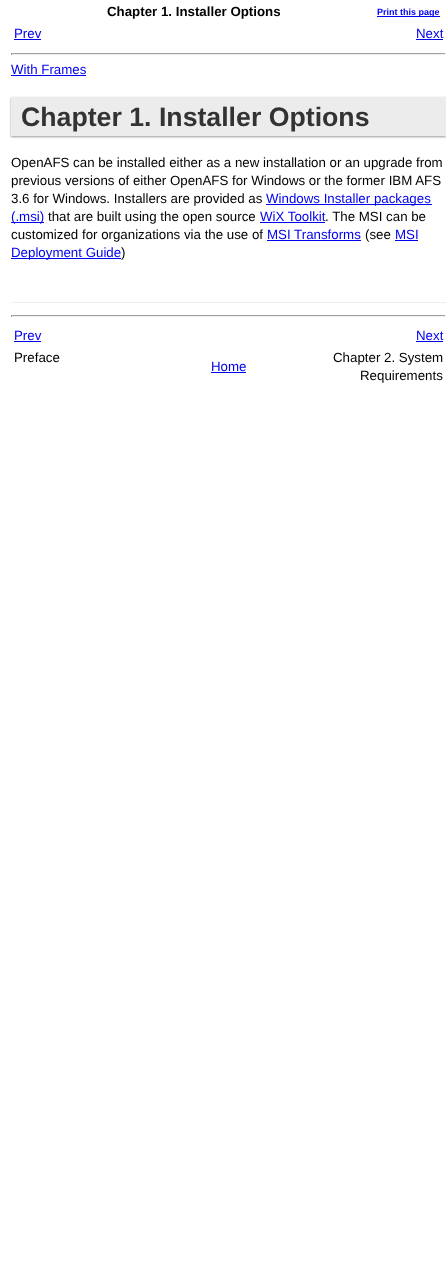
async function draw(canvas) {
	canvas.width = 446;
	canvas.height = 1264;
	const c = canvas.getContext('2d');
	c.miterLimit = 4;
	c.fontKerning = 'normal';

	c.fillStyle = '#fff';
	c.fillRect(0, 0, 446, 1264);
	c.font = 'bold 13.3px Liberation Sans';
	c.fillStyle = '#000';
	c.fillText('Chapter 1. Installer Options', 107, 16);
	c.fillStyle = '#00e';
	c.fillRect(377, 16, 63, 1);
	c.font = 'bold 9px Liberation Sans';
	c.fillText('Print this page', 377, 15);
	c.font = '13.3px Liberation Sans';
	c.fillText('Prev', 14, 38);
	c.fillRect(14, 39, 27, 1);
	c.fillText('Next', 416, 38);
	for (const [x, y, w, h, color] of [
		[416, 39, 27, 1, '#00e'],
		[11, 53, 435, 1, '#9f9f9f'],
		[445, 53, 1, 2, '#eee'],
		[11, 54, 435, 1, '#eee'],
		[11, 53, 1, 2, '#9f9f9f'],
	]) {
		c.fillStyle = color;
		c.fillRect(x, y, w, h);
	}
	c.fillStyle = '#00e';
	c.fillText('With Frames', 11, 74);
	c.fillRect(11, 75, 75, 1);
	c.fillStyle = '#999';
	c.filter = 'blur(1px)';
	c.beginPath();
	c.rect(11, 98, 435, 39);
	c.fill();
	c.filter = 'none';
	c.fillStyle = '#ececec';
	c.fillRect(11, 97, 435, 39);
	c.font = 'bold 26.7px Liberation Sans';
	c.fillStyle = '#333';
	c.fillText('Chapter 1. Installer Options', 21, 126);
	c.font = '13.3px Liberation Sans';
	c.fillStyle = '#000';
	for (const [text, x, y] of [
		['OpenAFS can be installed either as a new installation or an upgrade from', 11, 167],
		['previous versions of either OpenAFS for Windows or the former IBM AFS', 11, 185],
		['3.6 for Windows. Installers are provided as', 11, 203],
	]) {
		c.fillText(text, x, y);
	}
	c.fillStyle = '#00e';
	c.fillRect(266, 204, 166, 1);
	c.fillText('Windows Installer packages', 266, 203);
	c.fillRect(11, 222, 33, 1);
	c.fillText('(.msi)', 11, 221);
	c.fillStyle = '#000';
	c.fillText('that are built using the open source', 48, 221);
	c.fillStyle = '#00e';
	c.fillText('WiX Toolkit', 260, 221);
	c.fillRect(260, 222, 65, 1);
	c.fillStyle = '#000';
	c.fillText('. The MSI can be', 325, 221);
	c.fillText('customized for organizations via the use of', 11, 239);
	c.fillStyle = '#00e';
	c.fillText('MSI Transforms', 267, 239);
	c.fillRect(267, 240, 94, 1);
	c.fillStyle = '#000';
	c.fillText('(see', 365, 239);
	c.fillStyle = '#00e';
	c.fillText('MSI', 395, 239);
	c.fillRect(395, 240, 23, 1);
	c.fillRect(11, 258, 110, 1);
	c.fillText('Deployment Guide', 11, 257);
	c.fillStyle = '#000';
	c.fillText(')', 121, 257);
	for (const [x, y, w, h, color] of [
		[11, 302, 435, 1, '#eee'],
		[11, 315, 435, 1, '#9f9f9f'],
		[445, 315, 1, 2, '#eee'],
		[11, 316, 435, 1, '#eee'],
		[11, 315, 1, 2, '#9f9f9f'],
	]) {
		c.fillStyle = color;
		c.fillRect(x, y, w, h);
	}
	c.fillStyle = '#00e';
	c.fillText('Prev', 14, 340);
	c.fillRect(14, 341, 27, 1);
	c.fillText('Next', 416, 340);
	c.fillRect(416, 341, 27, 1);
	c.fillStyle = '#000';
	c.fillText('Preface', 14, 362);
	c.fillStyle = '#00e';
	c.fillText('Home', 211, 371);
	c.fillRect(211, 372, 35, 1);
	c.fillStyle = '#000';
	c.fillText('Chapter 2. System', 333, 362);
	c.fillText('Requirements', 360, 380);
}

draw(document.querySelector('canvas'));
